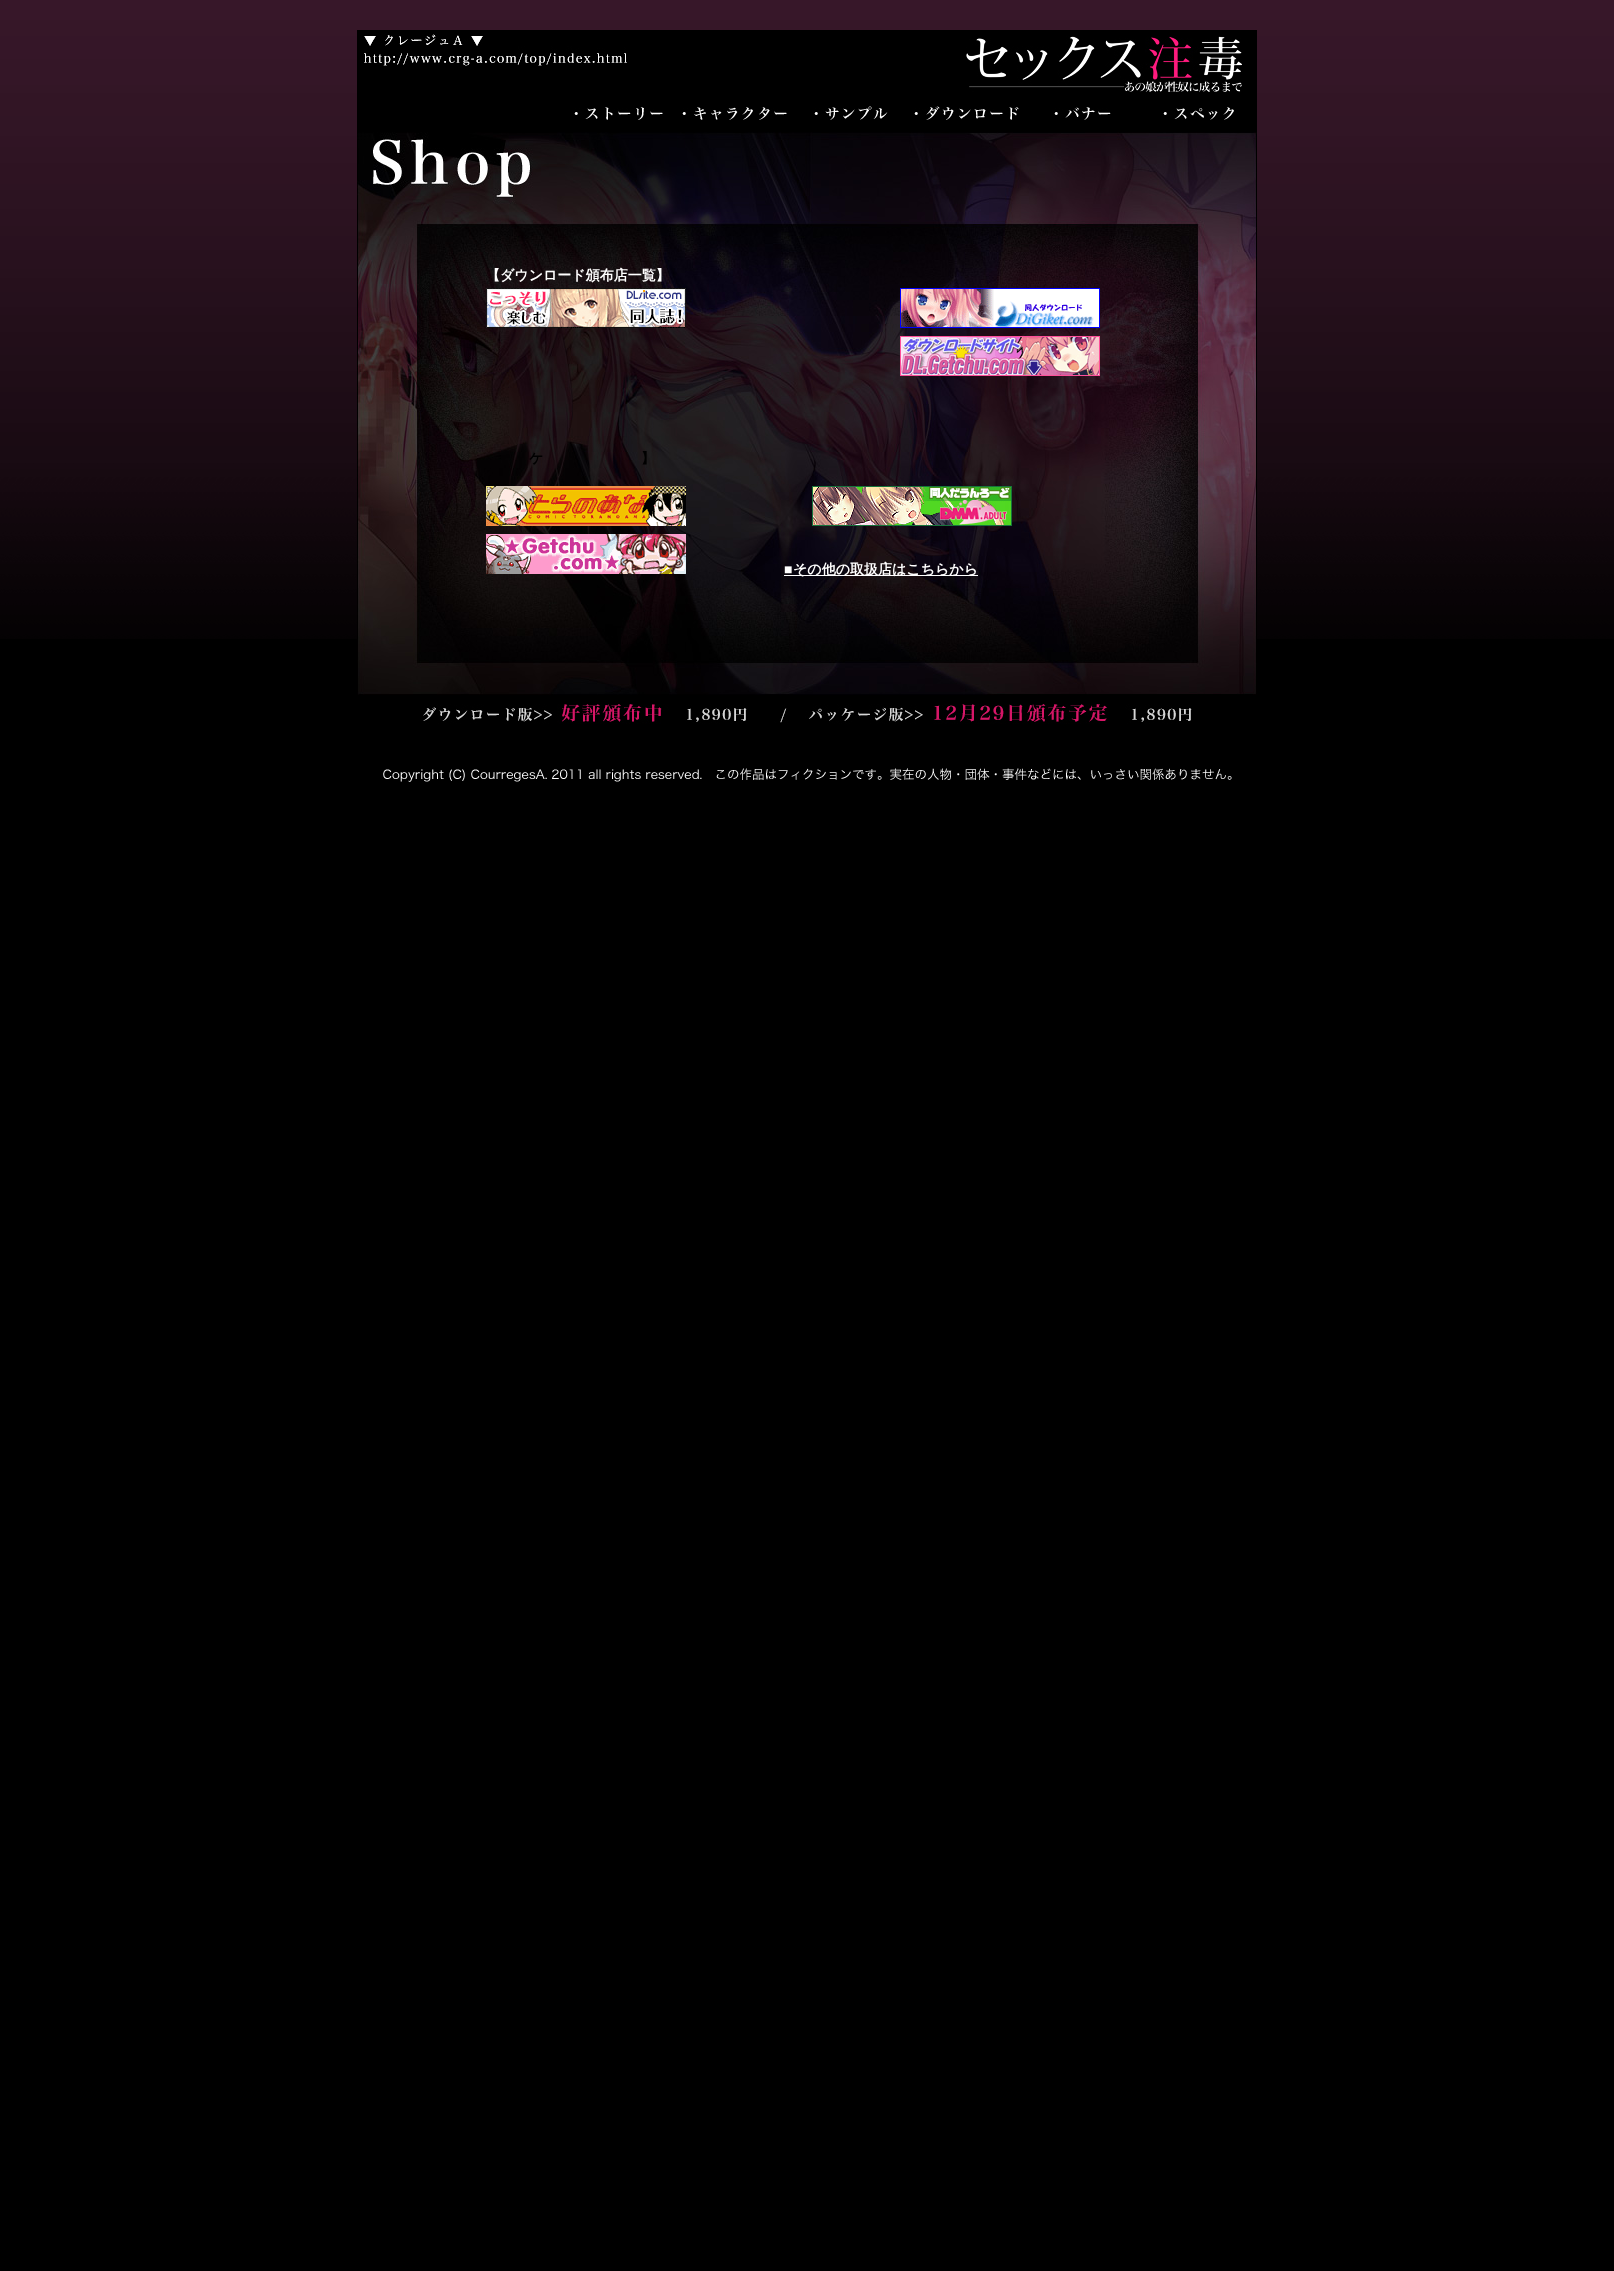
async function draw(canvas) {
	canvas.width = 1614;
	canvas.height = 2271;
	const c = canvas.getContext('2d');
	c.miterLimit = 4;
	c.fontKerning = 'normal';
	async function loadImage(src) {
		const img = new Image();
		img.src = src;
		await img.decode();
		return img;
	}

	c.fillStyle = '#000';
	c.fillRect(0, 0, 1614, 2271);
	c.drawImage(await loadImage('img1.png'), 0, 0, 1614, 639);
	c.fillRect(357, 30, 900, 102);
	c.drawImage(await loadImage('img2.png'), 364, 34, 263, 32);
	c.drawImage(await loadImage('img3.png'), 966, 36, 276, 56);
	c.drawImage(await loadImage('img4.png'), 574, 107, 89, 13);
	c.drawImage(await loadImage('img5.png'), 682, 107, 105, 13);
	c.drawImage(await loadImage('img6.png'), 814, 106, 74, 14);
	c.drawImage(await loadImage('img7.png'), 914, 106, 105, 14);
	c.drawImage(await loadImage('img8.png'), 1054, 107, 57, 13);
	c.drawImage(await loadImage('img9.png'), 1163, 107, 71, 13);
	c.drawImage(await loadImage('img10.png'), 357, 132, 900, 563);
	c.font = 'bold 14px WenQuanYi Zen Hei';
	c.fillStyle = '#fff';
	c.fillText('【ダウンロード頒布店一覧】', 486, 280);
	c.drawImage(await loadImage('img11.png'), 486, 288, 200, 40);
	c.drawImage(await loadImage('img12.png'), 900, 288, 200, 40);
	c.drawImage(await loadImage('img13.png'), 900, 336, 200, 40);
	c.fillStyle = '#000';
	c.fillText('ケ', 529, 463);
	c.fillText('】', 641, 463);
	c.drawImage(await loadImage('img14.png'), 486, 486, 200, 40);
	c.drawImage(await loadImage('img15.png'), 812, 486, 200, 40);
	c.drawImage(await loadImage('img16.png'), 486, 534, 200, 40);
	c.font = 'bold 14px Liberation Serif';
	c.fillStyle = '#fff';
	c.fillText('■', 784, 574);
	c.fillRect(784, 575, 194, 1);
	c.font = 'bold 14px WenQuanYi Zen Hei';
	c.fillText('その他の取扱店はこちらから', 793, 574);
	c.drawImage(await loadImage('img17.png'), 423, 704, 769, 20);
	c.drawImage(await loadImage('img18.png'), 383, 768, 849, 14);
}

draw(document.querySelector('canvas'));
